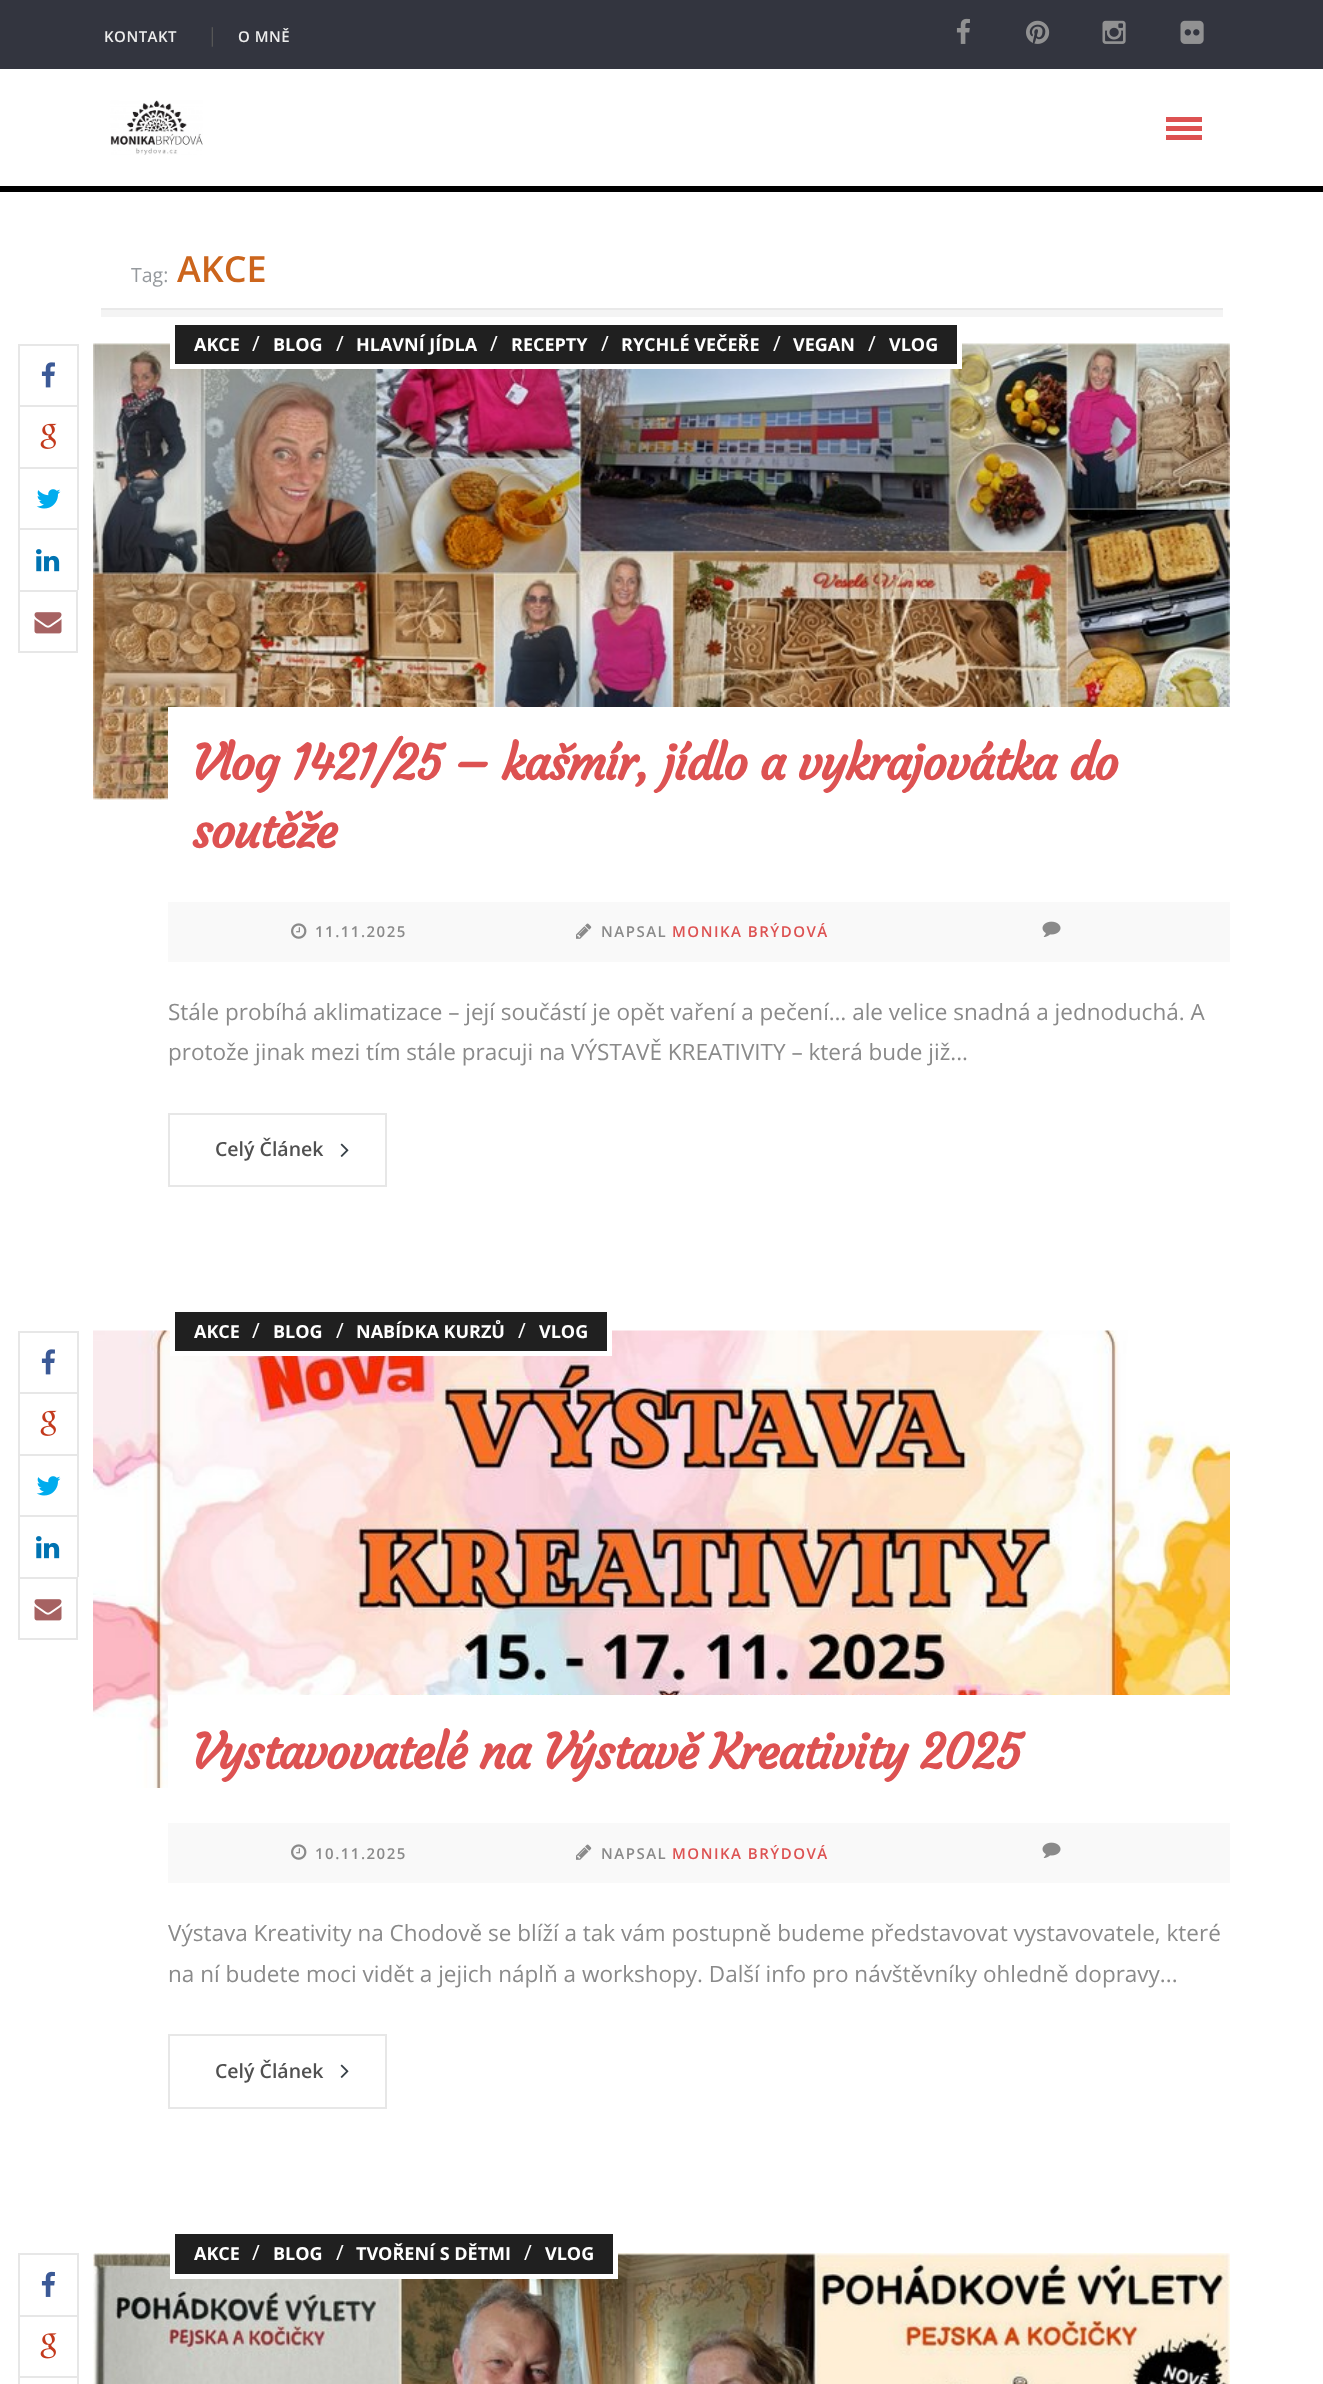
async function draw(canvas) {
	canvas.width = 1323;
	canvas.height = 2384;
	const c = canvas.getContext('2d');
	c.miterLimit = 4;
	c.fontKerning = 'normal';
	async function loadImage(src) {
		const img = new Image();
		img.src = src;
		await img.decode();
		return img;
	}

	c.fillStyle = '#fff';
	c.fillRect(0, 0, 1323, 2384);
	c.fillStyle = '#33353f';
	c.fillRect(0, 0, 1323, 69);
	c.letterSpacing = '0.5px';
	c.font = '600 15px Open Sans';
	c.fillStyle = '#ededed';
	c.fillText('KONTAKT', 104, 42);
	c.letterSpacing = '0px';
	c.font = '19.5px Open Sans';
	c.fillStyle = '#565656';
	c.fillText('|', 207, 42);
	c.letterSpacing = '0.5px';
	c.font = '600 15px Open Sans';
	c.fillStyle = '#ededed';
	c.fillText('O MNĚ', 238, 42);
	c.drawImage(await loadImage('img1.png'), 956, 18, 14, 26);
	c.drawImage(await loadImage('img2.png'), 1026, 20, 24, 24);
	c.drawImage(await loadImage('img3.png'), 1102, 20, 24, 24);
	c.drawImage(await loadImage('img4.png'), 1180, 20, 24, 24);
	c.fillStyle = '#000';
	c.fillRect(0, 186, 1323, 6);
	c.drawImage(await loadImage('img5.png'), 110, 100, 93, 55);
	for (const [x, y, w, h, color] of [
		[1166, 117, 36, 5, '#dd5252'],
		[1166, 126, 36, 5, '#dd5252'],
		[1166, 135, 36, 5, '#dd5252'],
		[101, 310, 1122, 7, '#f4f4f4'],
		[101, 308, 1122, 2, '#e9e9e9'],
	]) {
		c.fillStyle = color;
		c.fillRect(x, y, w, h);
	}
	c.letterSpacing = '0px';
	c.font = '19.5px Open Sans';
	c.fillStyle = '#969a9e';
	c.fillText('Tag:', 131, 282);
	c.font = '600 36px Open Sans';
	c.fillStyle = '#cc651c';
	c.fillText('AKCE', 177, 282);
	c.drawImage(await loadImage('img11.png'), 93, 343, 1137, 457);
	c.fillStyle = '#202020';
	c.beginPath();
	c.rect(172.5, 322.5, 787, 44);
	c.fill();
	c.strokeStyle = '#fff';
	c.lineWidth = 5;
	c.stroke();
	c.font = 'bold 18px Open Sans';
	c.fillStyle = '#fff';
	c.fillText('AKCE', 194, 351);
	c.font = '21px Open Sans';
	c.fillText('/', 252, 351);
	c.font = 'bold 18px Open Sans';
	c.fillText('BLOG', 273, 351);
	c.font = '21px Open Sans';
	c.fillText('/', 336, 351);
	c.font = 'bold 18px Open Sans';
	c.fillText('HLAVNÍ JÍDLA', 356, 351);
	c.font = '21px Open Sans';
	c.fillText('/', 490, 351);
	c.font = 'bold 18px Open Sans';
	c.fillText('RECEPTY', 511, 351);
	c.font = '21px Open Sans';
	c.fillText('/', 601, 351);
	c.font = 'bold 18px Open Sans';
	c.fillText('RYCHLÉ VEČEŘE', 621, 351);
	c.font = '21px Open Sans';
	c.fillText('/', 773, 351);
	c.font = 'bold 18px Open Sans';
	c.fillText('VEGAN', 793, 351);
	c.font = '21px Open Sans';
	c.fillText('/', 868, 351);
	c.font = 'bold 18px Open Sans';
	c.fillText('VLOG', 889, 351);
	for (const [x, y, w, h, color] of [
		[18, 344, 60, 2, '#e7e7e7'],
		[77, 344, 2, 61, '#e7e7e7'],
		[18, 344, 2, 61, '#e7e7e7'],
	]) {
		c.fillStyle = color;
		c.fillRect(x, y, w, h);
	}
	c.drawImage(await loadImage('img6.png'), 41, 362, 14, 26);
	for (const [x, y, w, h, color] of [
		[18, 405, 60, 2, '#e7e7e7'],
		[77, 405, 2, 62, '#e7e7e7'],
		[18, 405, 2, 62, '#e7e7e7'],
	]) {
		c.fillStyle = color;
		c.fillRect(x, y, w, h);
	}
	c.drawImage(await loadImage('img7.png'), 40, 423, 17, 26);
	for (const [x, y, w, h, color] of [
		[18, 467, 60, 2, '#e7e7e7'],
		[77, 467, 2, 61, '#e7e7e7'],
		[18, 467, 2, 61, '#e7e7e7'],
	]) {
		c.fillStyle = color;
		c.fillRect(x, y, w, h);
	}
	c.drawImage(await loadImage('img8.png'), 36, 489, 25, 20);
	for (const [x, y, w, h, color] of [
		[18, 528, 60, 2, '#e7e7e7'],
		[77, 528, 2, 62, '#e7e7e7'],
		[18, 528, 2, 62, '#e7e7e7'],
	]) {
		c.fillStyle = color;
		c.fillRect(x, y, w, h);
	}
	c.drawImage(await loadImage('img9.png'), 36, 549, 24, 23);
	c.strokeStyle = '#e7e7e7';
	c.lineWidth = 2;
	c.strokeRect(19, 591, 58, 61);
	c.drawImage(await loadImage('img10.png'), 34, 612, 28, 22);
	c.fillStyle = '#fff';
	c.fillRect(168, 707, 1062, 93);
	c.letterSpacing = '-1.5px';
	c.font = 'bold 48px Courgette';
	c.fillStyle = '#dd5252';
	c.fillText('Vlog 1421/25 – kašmír, jídlo a vykrajovátka do', 192, 780);
	c.fillText('soutěže', 192, 848);
	c.fillStyle = '#f9f9f9';
	c.fillRect(168, 902, 1062, 60);
	c.drawImage(await loadImage('img12.png'), 291, 923, 16, 16);
	c.letterSpacing = '1.5px';
	c.font = '600 15px Open Sans';
	c.fillStyle = '#8a8a8a';
	c.fillText('11.11.2025', 315, 937);
	c.drawImage(await loadImage('img13.png'), 576, 923, 16, 16);
	c.fillText('NAPSAL', 601, 937);
	c.fillStyle = '#dd5252';
	c.fillText('MONIKA BRÝDOVÁ', 672, 937);
	c.drawImage(await loadImage('img14.png'), 1042, 921, 19, 16);
	c.letterSpacing = '0px';
	c.font = '22.5px Open Sans';
	c.fillStyle = '#8a8a8a';
	c.fillText('Stále probíhá aklimatizace – její součástí je opět vaření a pečení… ale velice snadná a jednoduchá. A', 168, 1020);
	c.fillText('protože jinak mezi tím stále pracuji na VÝSTAVĚ KREATIVITY – která bude již...', 168, 1060);
	c.strokeRect(169, 1114, 217, 72);
	c.font = '600 19.5px Open Sans';
	c.fillStyle = '#505050';
	c.fillText('Celý Článek', 215, 1156);
	c.drawImage(await loadImage('img15.png'), 340, 1143, 9, 14);
	c.drawImage(await loadImage('img16.png'), 93, 1330, 1137, 458);
	c.fillStyle = '#202020';
	c.beginPath();
	c.rect(172.5, 1309.5, 437, 44);
	c.fill();
	c.strokeStyle = '#fff';
	c.lineWidth = 5;
	c.stroke();
	c.font = 'bold 18px Open Sans';
	c.fillStyle = '#fff';
	c.fillText('AKCE', 194, 1338);
	c.font = '21px Open Sans';
	c.fillText('/', 252, 1338);
	c.font = 'bold 18px Open Sans';
	c.fillText('BLOG', 273, 1338);
	c.font = '21px Open Sans';
	c.fillText('/', 336, 1338);
	c.font = 'bold 18px Open Sans';
	c.fillText('NABÍDKA KURZŮ', 356, 1338);
	c.font = '21px Open Sans';
	c.fillText('/', 518, 1338);
	c.font = 'bold 18px Open Sans';
	c.fillText('VLOG', 539, 1338);
	for (const [x, y, w, h, color] of [
		[18, 1331, 60, 2, '#e7e7e7'],
		[77, 1331, 2, 61, '#e7e7e7'],
		[18, 1331, 2, 61, '#e7e7e7'],
	]) {
		c.fillStyle = color;
		c.fillRect(x, y, w, h);
	}
	c.drawImage(await loadImage('img6.png'), 41, 1349, 14, 26);
	for (const [x, y, w, h, color] of [
		[18, 1392, 60, 2, '#e7e7e7'],
		[77, 1392, 2, 62, '#e7e7e7'],
		[18, 1392, 2, 62, '#e7e7e7'],
	]) {
		c.fillStyle = color;
		c.fillRect(x, y, w, h);
	}
	c.drawImage(await loadImage('img7.png'), 40, 1410, 17, 26);
	for (const [x, y, w, h, color] of [
		[18, 1454, 60, 2, '#e7e7e7'],
		[77, 1454, 2, 61, '#e7e7e7'],
		[18, 1454, 2, 61, '#e7e7e7'],
	]) {
		c.fillStyle = color;
		c.fillRect(x, y, w, h);
	}
	c.drawImage(await loadImage('img8.png'), 36, 1476, 25, 20);
	for (const [x, y, w, h, color] of [
		[18, 1515, 60, 2, '#e7e7e7'],
		[77, 1515, 2, 62, '#e7e7e7'],
		[18, 1515, 2, 62, '#e7e7e7'],
	]) {
		c.fillStyle = color;
		c.fillRect(x, y, w, h);
	}
	c.drawImage(await loadImage('img9.png'), 36, 1536, 24, 23);
	c.strokeStyle = '#e7e7e7';
	c.lineWidth = 2;
	c.strokeRect(19, 1578, 58, 61);
	c.drawImage(await loadImage('img10.png'), 34, 1599, 28, 22);
	c.fillStyle = '#fff';
	c.fillRect(168, 1695, 1062, 93);
	c.letterSpacing = '-1.5px';
	c.font = 'bold 48px Courgette';
	c.fillStyle = '#dd5252';
	c.fillText('Vystavovatelé na Výstavě Kreativity 2025', 192, 1769);
	c.fillStyle = '#f9f9f9';
	c.fillRect(168, 1823, 1062, 60);
	c.drawImage(await loadImage('img12.png'), 291, 1844, 16, 16);
	c.letterSpacing = '1.5px';
	c.font = '600 15px Open Sans';
	c.fillStyle = '#8a8a8a';
	c.fillText('10.11.2025', 315, 1859);
	c.drawImage(await loadImage('img13.png'), 576, 1844, 16, 16);
	c.fillText('NAPSAL', 601, 1859);
	c.fillStyle = '#dd5252';
	c.fillText('MONIKA BRÝDOVÁ', 672, 1859);
	c.drawImage(await loadImage('img14.png'), 1042, 1842, 19, 16);
	c.letterSpacing = '0px';
	c.font = '22.5px Open Sans';
	c.fillStyle = '#8a8a8a';
	c.fillText('Výstava Kreativity na Chodově se blíží a tak vám postupně budeme představovat vystavovatele, které', 168, 1941);
	c.fillText('na ní budete moci vidět a jejich náplň a workshopy. Další info pro návštěvníky ohledně dopravy...', 168, 1982);
	c.strokeRect(169, 2035, 217, 73);
	c.font = '600 19.5px Open Sans';
	c.fillStyle = '#505050';
	c.fillText('Celý Článek', 215, 2078);
	c.drawImage(await loadImage('img15.png'), 340, 2064, 9, 14);
	for (const [x, y, w, h, color] of [
		[18, 2253, 60, 2, '#e7e7e7'],
		[77, 2253, 2, 62, '#e7e7e7'],
		[18, 2253, 2, 62, '#e7e7e7'],
	]) {
		c.fillStyle = color;
		c.fillRect(x, y, w, h);
	}
	c.drawImage(await loadImage('img17.png'), 41, 2271, 14, 26);
	for (const [x, y, w, h, color] of [
		[18, 2315, 60, 2, '#e7e7e7'],
		[77, 2315, 2, 61, '#e7e7e7'],
		[18, 2315, 2, 61, '#e7e7e7'],
	]) {
		c.fillStyle = color;
		c.fillRect(x, y, w, h);
	}
	c.drawImage(await loadImage('img18.png'), 40, 2333, 17, 26);
	for (const [x, y, w, h, color] of [
		[18, 2376, 60, 2, '#e7e7e7'],
		[77, 2376, 2, 8, '#e7e7e7'],
		[18, 2376, 2, 8, '#e7e7e7'],
	]) {
		c.fillStyle = color;
		c.fillRect(x, y, w, h);
	}
	c.drawImage(await loadImage('img19.png'), 93, 2253, 1137, 131);
	c.fillStyle = '#202020';
	c.beginPath();
	c.rect(172.5, 2231.5, 443, 45);
	c.fill();
	c.strokeStyle = '#fff';
	c.lineWidth = 5;
	c.stroke();
	c.font = 'bold 18px Open Sans';
	c.fillStyle = '#fff';
	c.fillText('AKCE', 194, 2260);
	c.font = '21px Open Sans';
	c.fillText('/', 252, 2260);
	c.font = 'bold 18px Open Sans';
	c.fillText('BLOG', 273, 2260);
	c.font = '21px Open Sans';
	c.fillText('/', 336, 2260);
	c.font = 'bold 18px Open Sans';
	c.fillText('TVOŘENÍ S DĚTMI', 356, 2260);
	c.font = '21px Open Sans';
	c.fillText('/', 524, 2260);
	c.font = 'bold 18px Open Sans';
	c.fillText('VLOG', 545, 2260);
}

draw(document.querySelector('canvas'));
